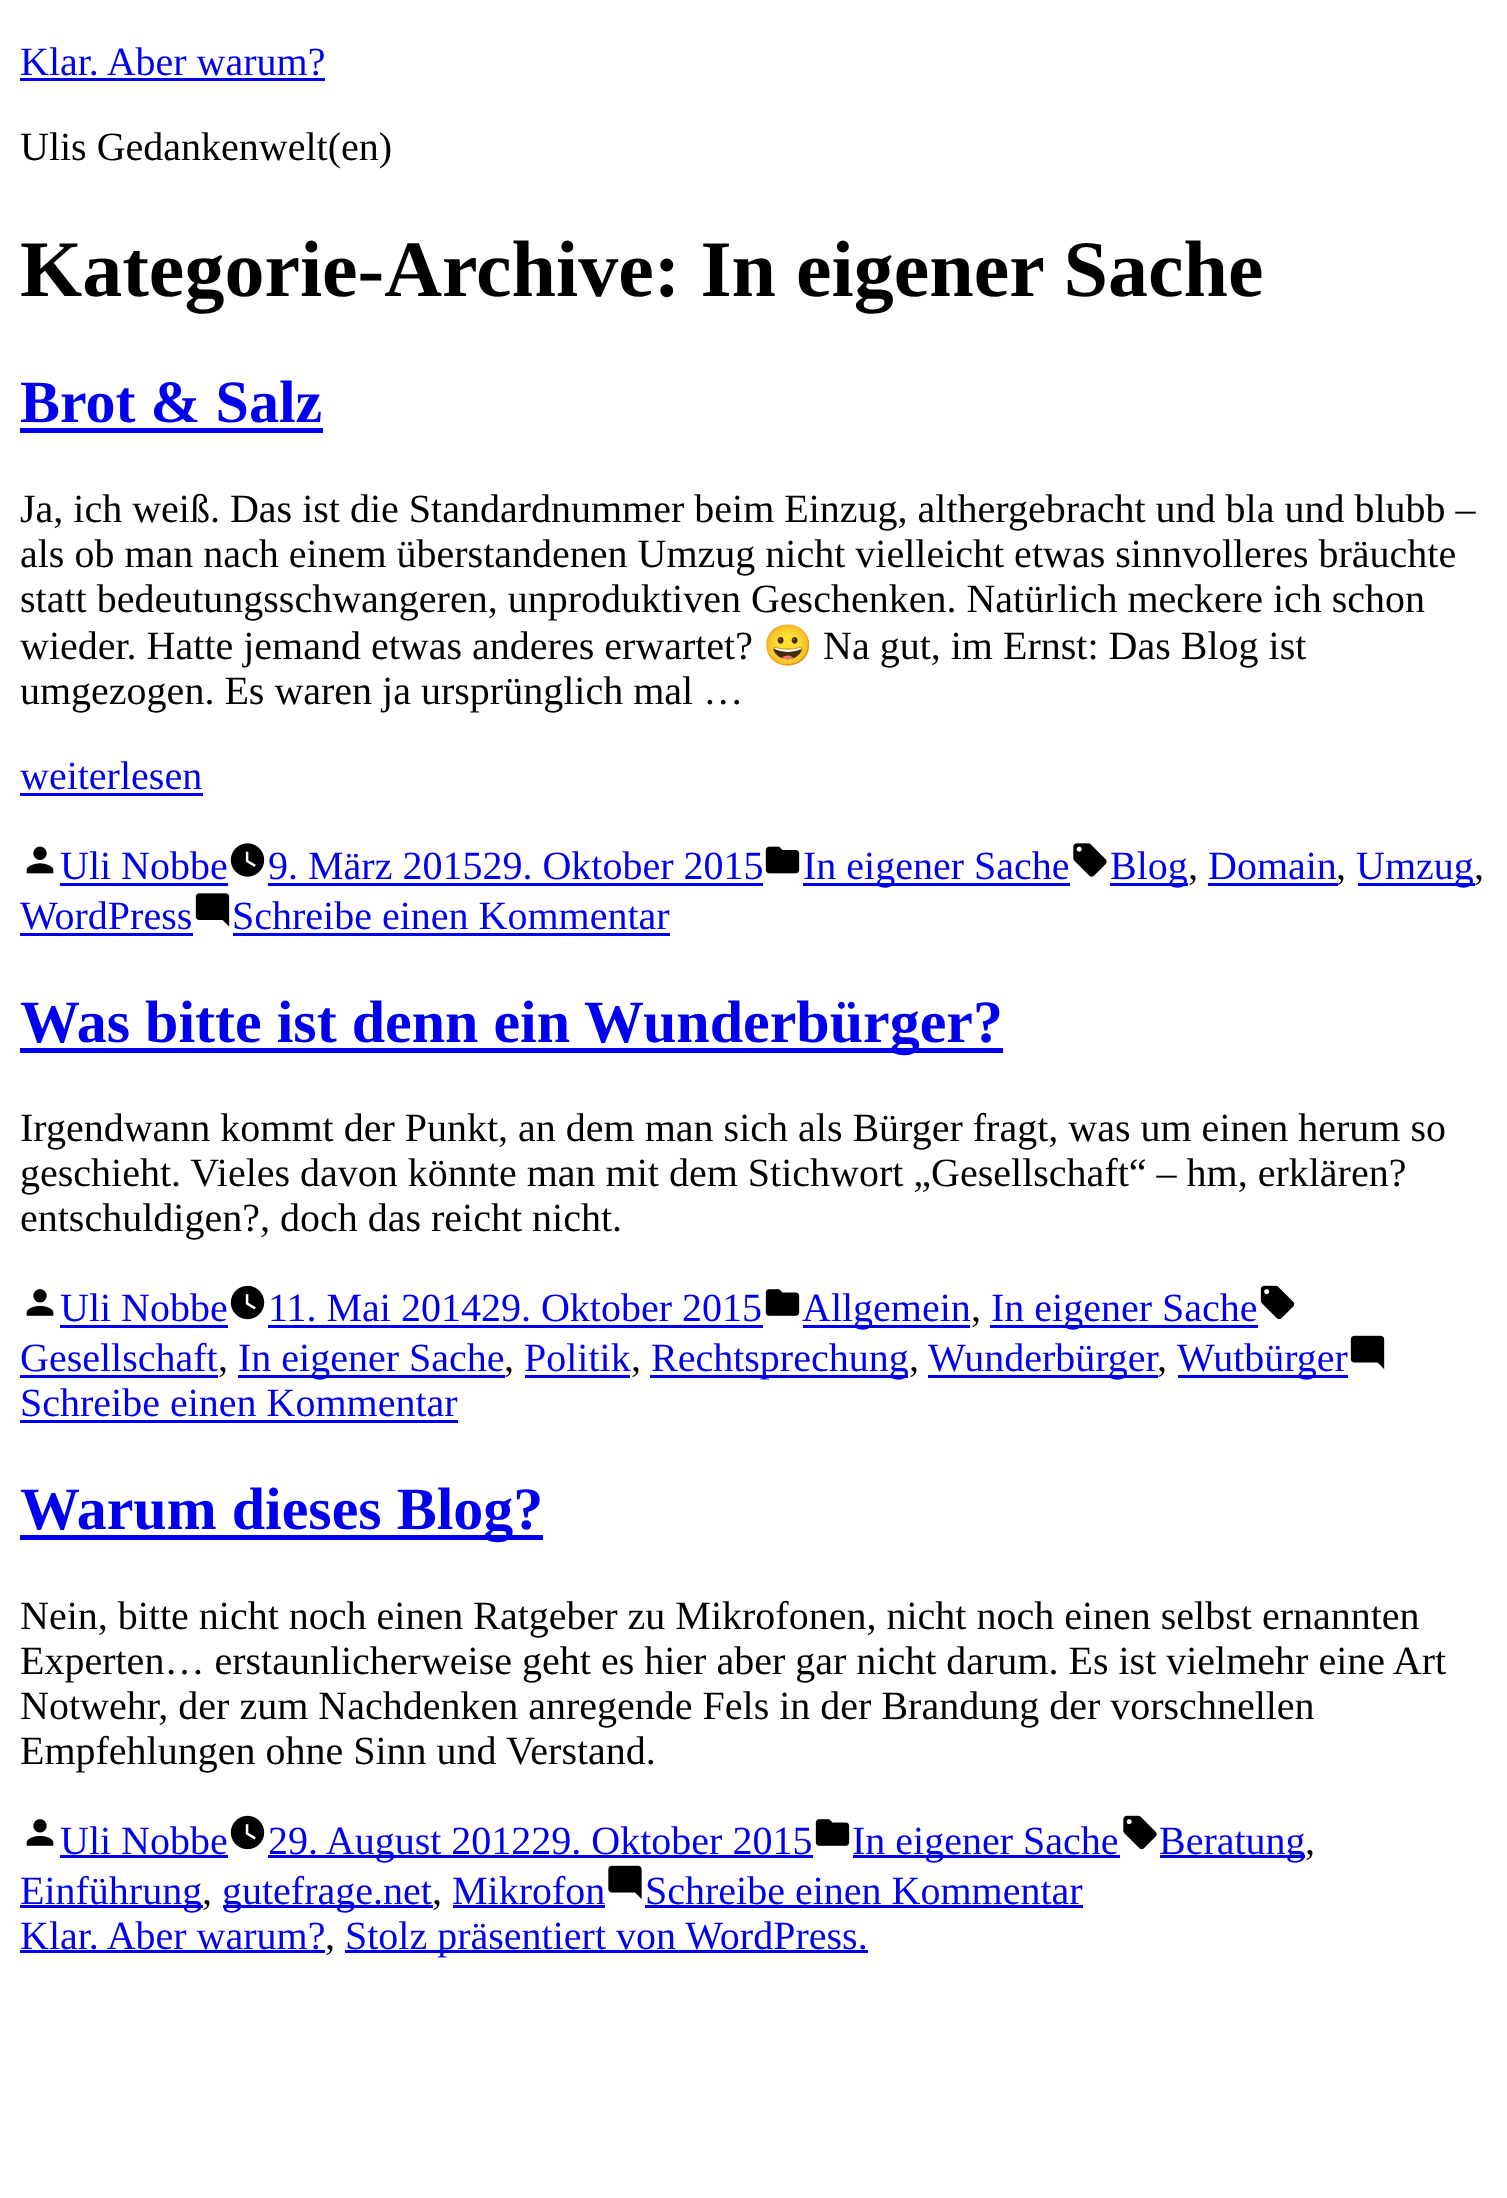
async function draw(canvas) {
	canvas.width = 1507;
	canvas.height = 2198;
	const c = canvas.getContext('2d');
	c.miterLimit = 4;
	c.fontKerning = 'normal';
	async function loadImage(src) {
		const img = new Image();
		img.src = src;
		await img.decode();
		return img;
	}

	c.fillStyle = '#fff';
	c.fillRect(0, 0, 1507, 2198);
	c.font = '40px Liberation Serif';
	c.fillStyle = '#00e';
	c.fillText('Klar. Aber warum?', 20, 75);
	c.fillRect(20, 78, 305, 3);
	c.fillStyle = '#000';
	c.fillText('Ulis Gedankenwelt(en)', 20, 160);
	c.font = 'bold 80px Liberation Serif';
	c.fillText('Kategorie-Archive: In eigener Sache', 20, 296);
	c.font = 'bold 60px Liberation Serif';
	c.fillStyle = '#00e';
	c.fillText('Brot & Salz', 20, 422);
	c.fillRect(20, 428, 303, 5);
	c.font = '40px Liberation Serif';
	c.fillStyle = '#000';
	for (const [text, x, y] of [
		['Ja, ich weiß. Das ist die Standardnummer beim Einzug, althergebracht und bla und blubb –', 20, 522],
		['als ob man nach einem überstandenen Umzug nicht vielleicht etwas sinnvolleres bräuchte', 20, 567],
		['statt bedeutungsschwangeren, unproduktiven Geschenken. Natürlich meckere ich schon', 20, 612],
		['wieder. Hatte jemand etwas anderes erwartet?', 20, 659],
	]) {
		c.fillText(text, x, y);
	}
	c.font = '40px Noto Color Emoji';
	c.fillText('😀', 763, 659);
	c.font = '40px Liberation Serif';
	c.fillText('Na gut, im Ernst: Das Blog ist', 823, 659);
	c.fillText('umgezogen. Es waren ja ursprünglich mal …', 20, 704);
	c.fillStyle = '#00e';
	c.fillText('weiterlesen', 20, 789);
	c.fillRect(20, 793, 183, 3);
	c.drawImage(await loadImage('img1.png'), 26, 846, 28, 28);
	c.fillText('Uli Nobbe', 60, 879);
	c.fillRect(60, 883, 168, 3);
	c.drawImage(await loadImage('img2.png'), 230, 843, 35, 34);
	c.fillText('9. März 201529. Oktober 2015', 268, 879);
	c.fillRect(268, 883, 495, 3);
	c.drawImage(await loadImage('img3.png'), 765, 846, 35, 28);
	c.fillRect(803, 883, 267, 3);
	c.fillText('In eigener Sache', 803, 879);
	c.drawImage(await loadImage('img4.png'), 1073, 843, 34, 34);
	c.fillRect(1110, 883, 78, 3);
	c.fillText('Blog', 1110, 879);
	c.fillStyle = '#000';
	c.fillText(',', 1188, 879);
	c.fillStyle = '#00e';
	c.fillText('Domain', 1208, 879);
	c.fillStyle = '#000';
	c.fillText(',', 1336, 879);
	c.fillStyle = '#00e';
	c.fillRect(1208, 883, 130, 3);
	c.fillRect(1358, 883, 117, 3);
	c.fillText('Umzug', 1356, 879);
	c.fillStyle = '#000';
	c.fillText(',', 1474, 879);
	c.fillStyle = '#00e';
	c.fillText('WordPress', 20, 929);
	c.fillRect(20, 933, 173, 3);
	c.drawImage(await loadImage('img5.png'), 195, 893, 35, 34);
	c.fillText('Schreibe einen Kommentar', 232, 929);
	c.fillRect(233, 933, 437, 3);
	c.fillRect(20, 1048, 983, 5);
	c.font = 'bold 60px Liberation Serif';
	c.fillText('Was bitte ist denn ein Wunderbürger?', 20, 1042);
	c.font = '40px Liberation Serif';
	c.fillStyle = '#000';
	for (const [text, x, y] of [
		['Irgendwann kommt der Punkt, an dem man sich als Bürger fragt, was um einen herum so', 20, 1141],
		['geschieht. Vieles davon könnte man mit dem Stichwort „Gesellschaft“ – hm, erklären?', 20, 1186],
		['entschuldigen?, doch das reicht nicht.', 20, 1231],
	]) {
		c.fillText(text, x, y);
	}
	c.drawImage(await loadImage('img6.png'), 26, 1289, 28, 27);
	c.fillStyle = '#00e';
	c.fillText('Uli Nobbe', 60, 1321);
	c.fillRect(60, 1325, 168, 3);
	c.drawImage(await loadImage('img7.png'), 230, 1285, 35, 35);
	c.fillText('11. Mai 201429. Oktober 2015', 268, 1321);
	c.fillRect(268, 1325, 495, 3);
	c.drawImage(await loadImage('img8.png'), 765, 1289, 35, 27);
	c.fillRect(803, 1325, 167, 3);
	c.fillText('Allgemein', 802, 1321);
	c.fillStyle = '#000';
	c.fillText(',', 971, 1321);
	c.fillStyle = '#00e';
	c.fillRect(990, 1325, 268, 3);
	c.fillText('In eigener Sache', 991, 1321);
	c.drawImage(await loadImage('img9.png'), 1260, 1285, 35, 35);
	c.fillText('Gesellschaft', 20, 1371);
	c.fillStyle = '#000';
	c.fillText(',', 218, 1371);
	c.fillStyle = '#00e';
	c.fillRect(20, 1375, 198, 3);
	c.fillRect(238, 1375, 267, 3);
	c.fillText('In eigener Sache', 238, 1371);
	c.fillStyle = '#000';
	c.fillText(',', 504, 1371);
	c.fillStyle = '#00e';
	c.fillText('Politik', 524, 1371);
	c.fillStyle = '#000';
	c.fillText(',', 631, 1371);
	c.fillStyle = '#00e';
	c.fillRect(525, 1375, 105, 3);
	c.fillRect(650, 1375, 258, 3);
	c.fillText('Rechtsprechung', 651, 1371);
	c.fillStyle = '#000';
	c.fillText(',', 909, 1371);
	c.fillStyle = '#00e';
	c.fillRect(928, 1375, 230, 3);
	c.fillText('Wunderbürger', 928, 1371);
	c.fillStyle = '#000';
	c.fillText(',', 1157, 1371);
	c.fillStyle = '#00e';
	c.fillRect(1178, 1375, 170, 3);
	c.fillText('Wutbürger', 1177, 1371);
	c.drawImage(await loadImage('img10.png'), 1350, 1335, 35, 34);
	c.fillText('Schreibe einen Kommentar', 20, 1416);
	c.fillRect(20, 1420, 438, 3);
	c.fillRect(20, 1535, 523, 5);
	c.font = 'bold 60px Liberation Serif';
	c.fillText('Warum dieses Blog?', 20, 1529);
	c.font = '40px Liberation Serif';
	c.fillStyle = '#000';
	for (const [text, x, y] of [
		['Nein, bitte nicht noch einen Ratgeber zu Mikrofonen, nicht noch einen selbst ernannten', 20, 1629],
		['Experten… erstaunlicherweise geht es hier aber gar nicht darum. Es ist vielmehr eine Art', 20, 1674],
		['Notwehr, der zum Nachdenken anregende Fels in der Brandung der vorschnellen', 20, 1719],
		['Empfehlungen ohne Sinn und Verstand.', 20, 1764],
	]) {
		c.fillText(text, x, y);
	}
	c.drawImage(await loadImage('img6.png'), 26, 1819, 28, 27);
	c.fillStyle = '#00e';
	c.fillText('Uli Nobbe', 60, 1854);
	c.fillRect(60, 1855, 168, 3);
	c.drawImage(await loadImage('img7.png'), 230, 1815, 35, 35);
	c.fillRect(268, 1855, 545, 3);
	c.fillText('29. August 201229. Oktober 2015', 268, 1854);
	c.drawImage(await loadImage('img8.png'), 815, 1819, 35, 27);
	c.fillRect(853, 1855, 267, 3);
	c.fillText('In eigener Sache', 852, 1854);
	c.drawImage(await loadImage('img11.png'), 1123, 1815, 34, 35);
	c.fillRect(1160, 1855, 145, 3);
	c.fillText('Beratung', 1159, 1854);
	c.fillStyle = '#000';
	c.fillText(',', 1305, 1854);
	c.fillStyle = '#00e';
	c.fillRect(20, 1905, 183, 3);
	c.fillText('Einführung', 20, 1904);
	c.fillStyle = '#000';
	c.fillText(',', 202, 1904);
	c.fillStyle = '#00e';
	c.fillRect(223, 1905, 210, 3);
	c.fillText('gutefrage.net', 222, 1904);
	c.fillStyle = '#000';
	c.fillText(',', 432, 1904);
	c.fillStyle = '#00e';
	c.fillRect(453, 1905, 152, 3);
	c.fillText('Mikrofon', 452, 1904);
	c.drawImage(await loadImage('img12.png'), 608, 1865, 34, 34);
	c.fillText('Schreibe einen Kommentar', 645, 1904);
	c.fillRect(645, 1905, 438, 3);
	c.fillText('Klar. Aber warum?', 20, 1949);
	c.fillRect(20, 1950, 305, 3);
	c.fillStyle = '#000';
	c.fillText(',', 325, 1949);
	c.fillStyle = '#00e';
	c.fillRect(345, 1950, 523, 3);
	c.fillText('Stolz präsentiert von WordPress.', 345, 1949);
}

draw(document.querySelector('canvas'));
